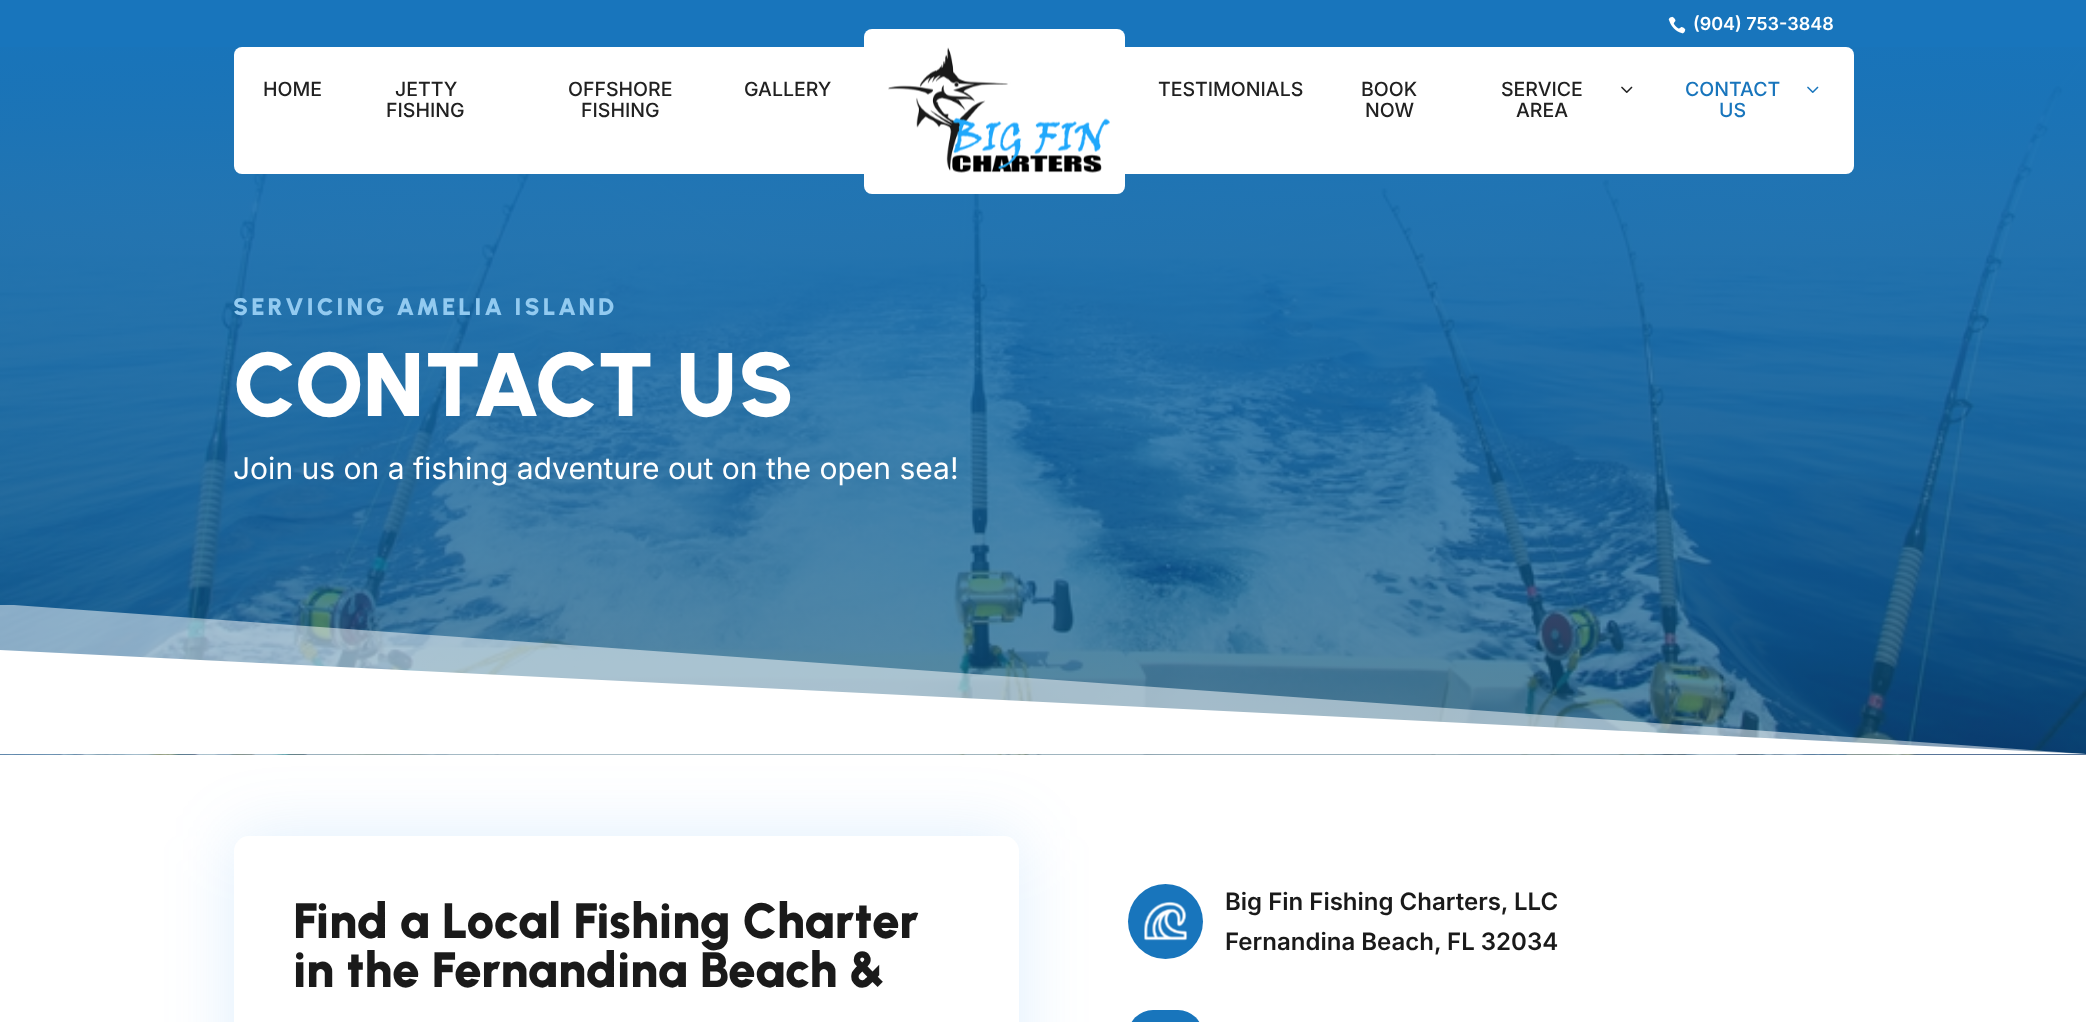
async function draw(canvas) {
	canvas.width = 2086;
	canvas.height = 1022;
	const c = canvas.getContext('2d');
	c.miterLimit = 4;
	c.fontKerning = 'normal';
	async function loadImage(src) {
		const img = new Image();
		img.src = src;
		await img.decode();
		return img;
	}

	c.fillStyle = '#fff';
	c.fillRect(0, 0, 2086, 1022);
	c.fillStyle = '#1875bc';
	c.fillRect(0, 0, 2086, 47);
	c.drawImage(await loadImage('img1.png'), 1668, 16, 18, 18);
	c.font = '600 18px Inter';
	c.fillStyle = '#fff';
	c.fillText('(904) 753-3848', 1693, 30);
	c.drawImage(await loadImage('img5.png'), 0, 47, 2086, 708);
	c.beginPath();
	c.roundRect(234, 47, 1620, 127, 8);
	c.fill();
	c.font = '500 19.5px Inter';
	c.fillStyle = '#212121';
	for (const [text, x, y] of [
		['HOME', 263, 96],
		['JETTY', 395, 96],
		['FISHING', 386, 117],
		['OFFSHORE', 568, 96],
		['FISHING', 581, 117],
		['GALLERY', 744, 96],
	]) {
		c.fillText(text, x, y);
	}
	c.fillStyle = '#fff';
	c.beginPath();
	c.roundRect(864, 29, 261, 165, 8);
	c.fill();
	c.drawImage(await loadImage('img2.png'), 888, 47, 222, 126);
	c.fillStyle = '#212121';
	for (const [text, x, y] of [
		['TESTIMONIALS', 1158, 96],
		['BOOK', 1361, 96],
		['NOW', 1365, 117],
		['SERVICE', 1501, 96],
	]) {
		c.fillText(text, x, y);
	}
	c.drawImage(await loadImage('img3.png'), 1621, 86, 12, 7);
	c.fillText('AREA', 1516, 117);
	c.fillStyle = '#1875bc';
	c.fillText('CONTACT', 1685, 96);
	c.drawImage(await loadImage('img4.png'), 1807, 86, 12, 7);
	c.fillText('US', 1719, 117);
	c.letterSpacing = '3px';
	c.font = '900 24px Urbanist';
	c.fillStyle = '#92caf0';
	c.fillText('SERVICING AMELIA ISLAND', 233, 315);
	c.letterSpacing = '0px';
	c.font = '900 90px Urbanist';
	c.fillStyle = '#fff';
	c.fillText('CONTACT US', 233, 416);
	c.font = '30px Inter';
	c.fillText('Join us on a fishing adventure out on the open sea!', 233, 479);
	c.fillStyle = '#399cf22b';
	c.filter = 'blur(34px)';
	c.beginPath();
	c.roundRect(234, 836, 785, 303, 15);
	c.fill();
	c.filter = 'none';
	c.save();
	c.beginPath();
	c.rect(0, 605, 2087, 150);
	c.clip();
	c.fillStyle = '#ffffff80';
	c.beginPath();
	c.moveTo(0, 604);
	c.lineTo(0, 754);
	c.lineTo(2086, 754);
	c.closePath();
	c.fill();
	c.restore();
	c.fillStyle = '#fff';
	c.beginPath();
	c.moveTo(0, 650);
	c.lineTo(0, 754);
	c.lineTo(2086, 754);
	c.closePath();
	c.fill();
	c.beginPath();
	c.roundRect(234, 836, 785, 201, 15);
	c.fill();
	c.font = '900 49.5px Urbanist';
	c.fillStyle = '#1a1a1a';
	c.fillText('Find a Local Fishing Charter', 293, 938);
	c.fillText('in the Fernandina Beach &', 293, 987);
	c.fillStyle = '#1875bc';
	c.beginPath();
	c.arc(1165.5, 921.5, 37.5, 0, 2 * Math.PI);
	c.fill();
	c.drawImage(await loadImage('img6.png'), 1144, 901, 44, 40);
	c.font = '600 24px Inter';
	c.fillStyle = '#1a1a1a';
	c.fillText('Big Fin Fishing Charters, LLC', 1225, 910);
	c.fillText('Fernandina Beach, FL 32034', 1225, 950);
	c.fillStyle = '#1875bc';
	c.beginPath();
	c.roundRect(1128, 1010, 75, 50, 37.5);
	c.fill();
}

draw(document.querySelector('canvas'));
